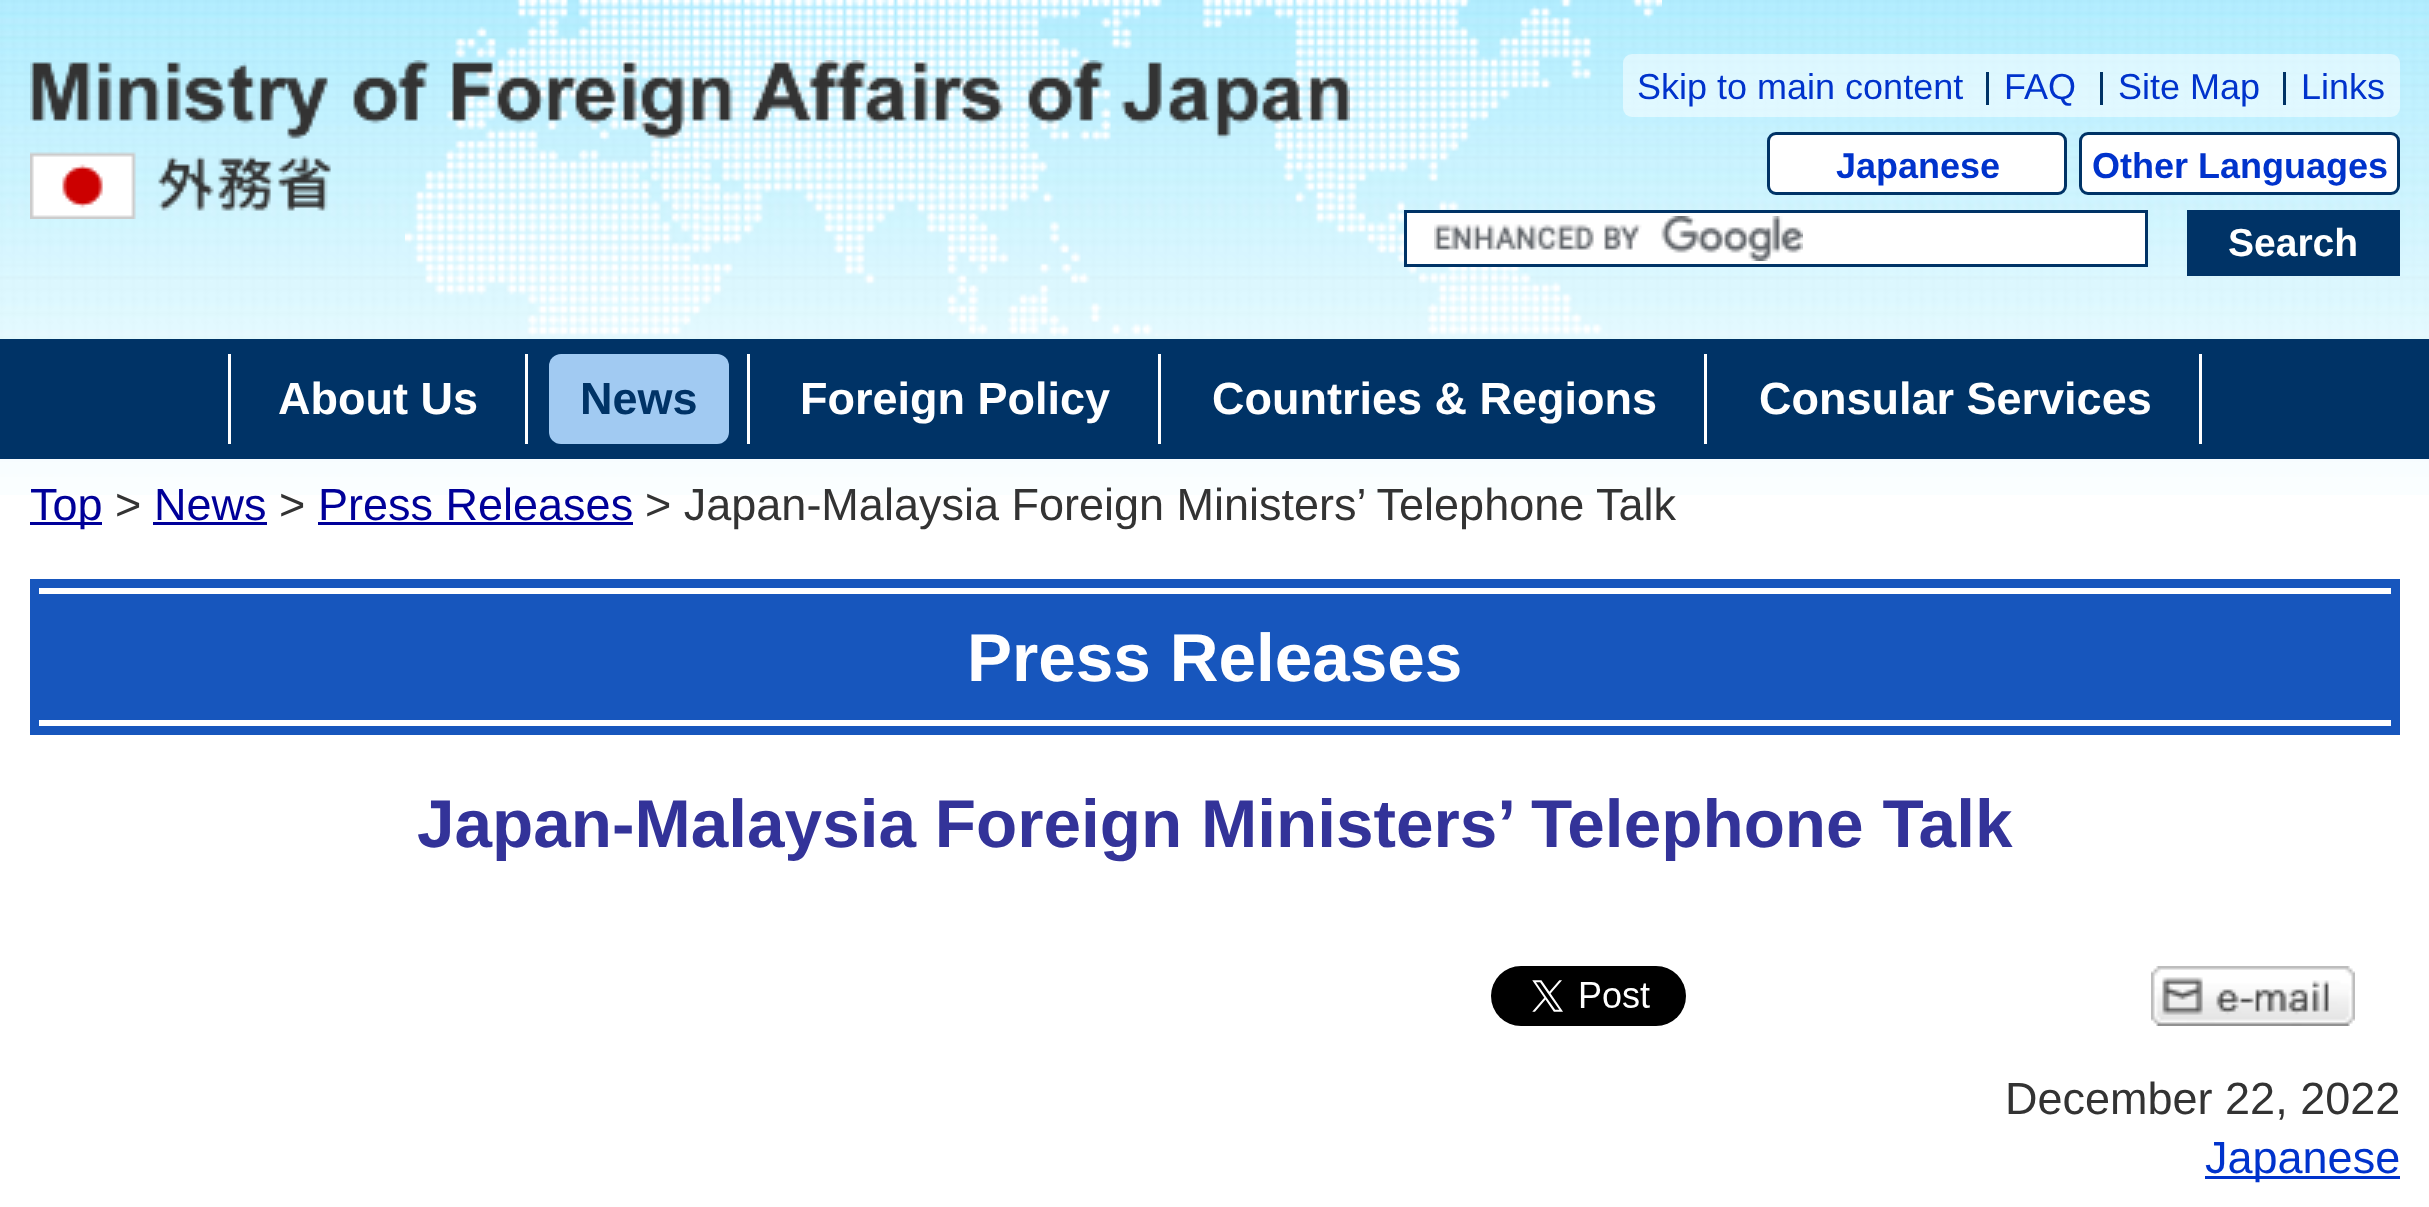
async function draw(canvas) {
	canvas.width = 2429;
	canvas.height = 1207;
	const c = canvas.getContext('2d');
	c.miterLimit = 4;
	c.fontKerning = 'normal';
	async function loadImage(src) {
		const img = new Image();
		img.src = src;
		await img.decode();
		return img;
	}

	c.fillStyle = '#fff';
	c.fillRect(0, 0, 2429, 1207);
	c.drawImage(await loadImage('img1.png'), 0, 0, 2429, 495);
	c.drawImage(await loadImage('img2.png'), 405, 0, 1257, 336);
	c.drawImage(await loadImage('img3.png'), 30, 60, 1320, 159);
	c.drawImage(await loadImage('img4.png'), 1623, 54, 777, 63);
	c.font = '36px Liberation Sans';
	c.fillStyle = '#03c';
	c.fillText('Skip to main content', 1637, 99);
	c.fillText('FAQ', 2004, 99);
	c.fillStyle = '#036';
	c.fillRect(1986, 72, 3, 33);
	c.fillStyle = '#03c';
	c.fillText('Site Map', 2118, 99);
	c.fillStyle = '#036';
	c.fillRect(2100, 72, 3, 33);
	c.fillStyle = '#03c';
	c.fillText('Links', 2301, 99);
	c.fillStyle = '#036';
	c.fillRect(2283, 72, 3, 33);
	c.fillStyle = '#fff';
	c.beginPath();
	c.roundRect(1768.5, 133.5, 297, 60, 7.5);
	c.fill();
	c.strokeStyle = '#036';
	c.lineWidth = 3;
	c.stroke();
	c.font = 'bold 36px Liberation Sans';
	c.fillStyle = '#03c';
	c.fillText('Japanese', 1836, 178);
	c.fillStyle = '#fff';
	c.beginPath();
	c.roundRect(2080.5, 133.5, 318, 60, 7.5);
	c.fill();
	c.stroke();
	c.fillStyle = '#03c';
	c.fillText('Other Languages', 2092, 178);
	c.fillStyle = '#fff';
	c.fillRect(1407, 213, 738, 51);
	c.drawImage(await loadImage('img5.png'), 1434, 216, 369, 45);
	c.strokeRect(1405.5, 211.5, 741, 54);
	c.fillStyle = '#036';
	c.fillRect(2187, 210, 213, 66);
	c.font = 'bold 39px Liberation Sans';
	c.fillStyle = '#fff';
	c.fillText('Search', 2228, 256);
	c.fillStyle = '#036';
	c.fillRect(0, 339, 2429, 120);
	c.fillStyle = '#fff';
	c.fillRect(228, 354, 3, 90);
	c.font = 'bold 45px Liberation Sans';
	c.fillText('About Us', 278, 414);
	c.fillRect(525, 354, 3, 90);
	c.fillStyle = '#a1caf2';
	c.beginPath();
	c.roundRect(549, 354, 180, 90, 12);
	c.fill();
	c.fillStyle = '#036';
	c.fillText('News', 580, 414);
	c.fillStyle = '#fff';
	c.fillRect(747, 354, 3, 90);
	c.fillText('Foreign Policy', 800, 414);
	c.fillRect(1158, 354, 3, 90);
	c.fillText('Countries & Regions', 1212, 414);
	c.fillRect(1704, 354, 3, 90);
	c.fillText('Consular Services', 1759, 414);
	c.fillRect(2199, 354, 3, 90);
	c.fillStyle = '#009';
	c.fillRect(30, 522, 72, 3);
	c.font = '45px Liberation Sans';
	c.fillText('Top', 30, 520);
	c.fillStyle = '#333';
	c.fillText('>', 115, 520);
	c.fillStyle = '#009';
	c.fillText('News', 154, 520);
	c.fillRect(153, 522, 114, 3);
	c.fillStyle = '#333';
	c.fillText('>', 279, 520);
	c.fillStyle = '#009';
	c.fillText('Press Releases', 318, 520);
	c.fillRect(318, 522, 315, 3);
	c.fillStyle = '#333';
	c.fillText('> Japan-Malaysia Foreign Ministers’ Telephone Talk', 645, 520);
	for (const [x, y, w, h, color] of [
		[30, 579, 2370, 156, '#1756bd'],
		[39, 588, 2352, 6, '#fff'],
		[39, 720, 2352, 6, '#fff'],
	]) {
		c.fillStyle = color;
		c.fillRect(x, y, w, h);
	}
	c.font = 'bold 67.5px Liberation Sans';
	c.fillText('Press Releases', 967, 681);
	c.fillStyle = '#339';
	c.fillText('Japan-Malaysia Foreign Ministers’ Telephone Talk', 417, 847);
	c.drawImage(await loadImage('img6.png'), 1491, 966, 195, 60);
	c.drawImage(await loadImage('img7.png'), 2151, 966, 204, 60);
	c.font = '45px Liberation Sans';
	c.fillStyle = '#333';
	c.fillText('December 22, 2022', 2005, 1114);
	c.fillStyle = '#03c';
	c.fillRect(2205, 1176, 195, 3);
	c.fillText('Japanese', 2205, 1173);
}

draw(document.querySelector('canvas'));
